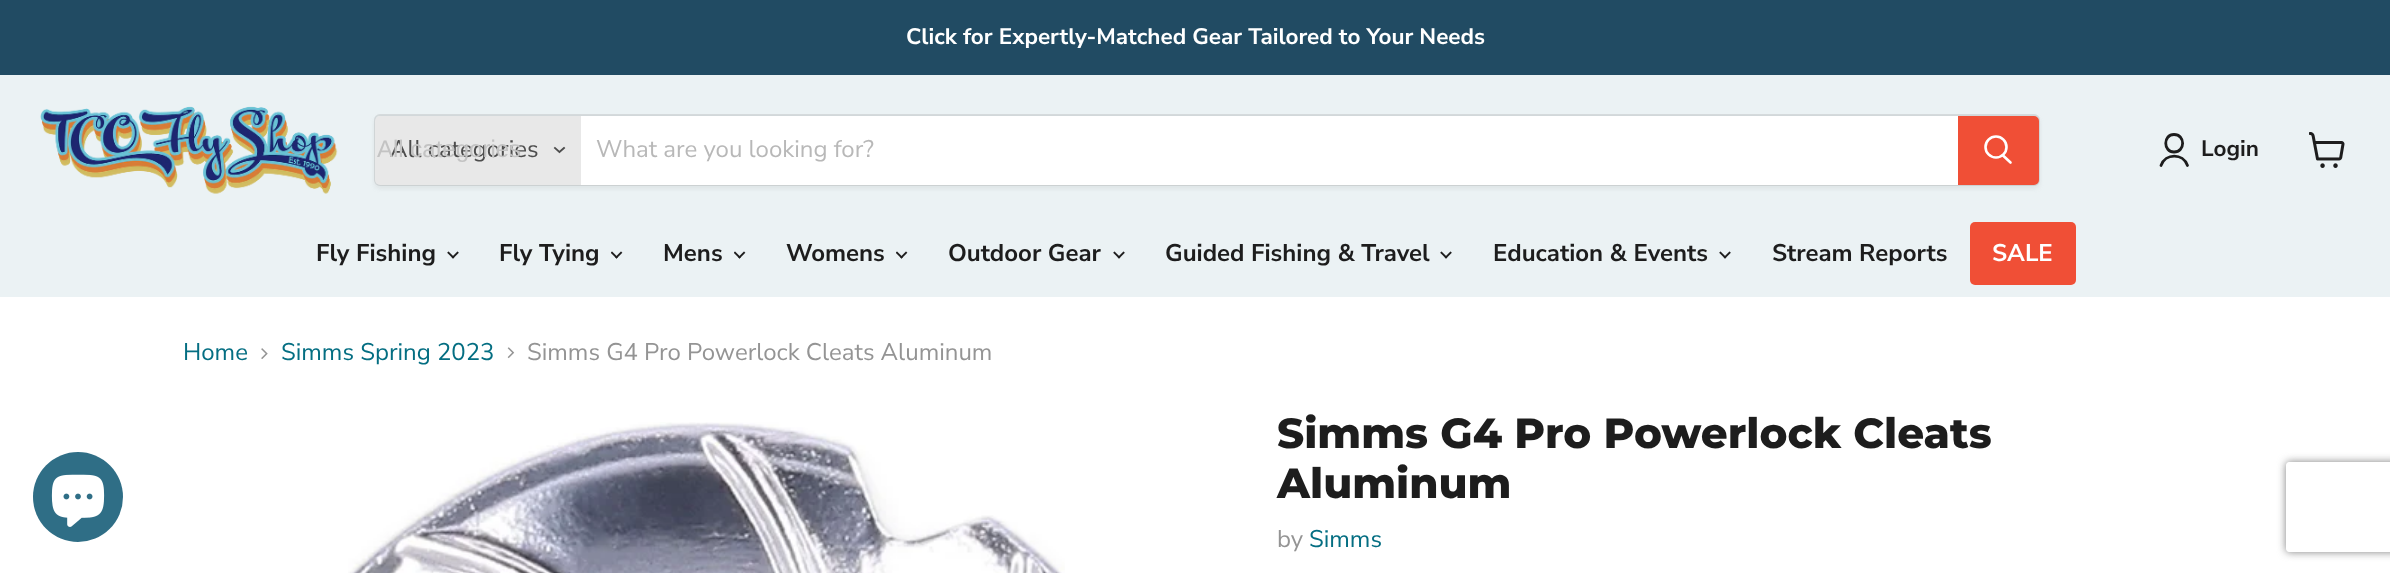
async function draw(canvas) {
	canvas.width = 2390;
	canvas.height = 573;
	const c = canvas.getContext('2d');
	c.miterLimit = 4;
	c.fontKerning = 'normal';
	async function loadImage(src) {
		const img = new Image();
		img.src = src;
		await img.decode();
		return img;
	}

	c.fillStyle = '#fff';
	c.fillRect(0, 0, 2390, 573);
	c.fillStyle = '#214b63';
	c.fillRect(0, 0, 2390, 75);
	c.font = 'bold 22.5px Nunito Sans';
	c.fillStyle = '#fff';
	c.fillText('Click for Expertly-Matched Gear Tailored to Your Needs', 906, 44);
	c.fillStyle = '#ebf2f4';
	c.fillRect(0, 75, 2390, 222);
	c.drawImage(await loadImage('img1.png'), 40, 106, 298, 88);
	c.fillStyle = '#8080801c';
	c.filter = 'blur(2px)';
	c.beginPath();
	c.roundRect(374, 117, 1666, 72, 6);
	c.fill();
	c.filter = 'none';
	c.beginPath();
	c.roundRect(375, 115, 1664, 70, 5);
	c.strokeStyle = '#80808033';
	c.lineWidth = 2;
	c.stroke();
	c.fillStyle = '#e8e8e8';
	c.beginPath();
	c.roundRect(375, 116, 206, 69, [5, 0, 0, 5]);
	c.fill();
	c.font = '24px Nunito Sans';
	c.fillStyle = '#4d4d4d';
	c.fillText('All categories', 390, 157);
	c.font = '24px Liberation Sans';
	c.fillStyle = '#c3c3c3';
	c.fillText('All categories', 377, 157);
	c.beginPath();
	c.moveTo(559.5, 152);
	c.lineTo(564, 148);
	c.moveTo(559.5, 152);
	c.lineTo(555, 148);
	c.strokeStyle = '#4d4d4d';
	c.lineWidth = 1.9;
	c.lineCap = 'square';
	c.stroke();
	c.fillStyle = '#fff';
	c.fillRect(581, 116, 1377, 69);
	c.font = '24px Nunito Sans';
	c.fillStyle = '#b8b8b8';
	c.fillText('What are you looking for?', 596, 157);
	c.fillStyle = '#f04f36';
	c.beginPath();
	c.roundRect(1959, 117, 79, 67, [0, 4, 4, 0]);
	c.fill();
	c.strokeStyle = '#f04f36';
	c.lineWidth = 2;
	c.stroke();
	c.beginPath();
	c.moveTo(2010.5, 162.5);
	c.lineTo(2003, 155.5);
	c.strokeStyle = '#fff';
	c.lineWidth = 2.6;
	c.lineCap = 'round';
	c.stroke();
	c.beginPath();
	c.arc(1996, 147, 10.5, 0, 2 * Math.PI);
	c.stroke();
	c.beginPath();
	c.moveTo(2174, 152);
	c.bezierCurveTo(2185.5, 152, 2185.5, 134.5, 2174, 134.5);
	c.bezierCurveTo(2163, 134.5, 2163, 152, 2174, 152);
	c.closePath();
	c.moveTo(2187.5, 165.5);
	c.bezierCurveTo(2183, 153, 2165.5, 153, 2161, 165.5);
	c.strokeStyle = '#1d1d1d';
	c.lineWidth = 2.8;
	c.lineJoin = 'round';
	c.stroke();
	c.font = 'bold 22.5px Nunito Sans';
	c.fillStyle = '#1d1d1d';
	c.fillText('Login', 2201, 156);
	c.drawImage(await loadImage('img2.png'), 2309, 132, 36, 36);
	c.font = 'bold 24px Nunito Sans';
	c.fillText('Fly Fishing', 316, 261);
	c.drawImage(await loadImage('img3.png'), 447, 251, 12, 8);
	c.fillText('Fly Tying', 499, 261);
	c.drawImage(await loadImage('img4.png'), 611, 251, 12, 8);
	c.fillText('Mens', 663, 261);
	c.drawImage(await loadImage('img4.png'), 734, 251, 12, 8);
	c.fillText('Womens', 786, 261);
	c.drawImage(await loadImage('img4.png'), 896, 251, 12, 8);
	c.fillText('Outdoor Gear', 948, 261);
	c.drawImage(await loadImage('img3.png'), 1113, 251, 12, 8);
	c.fillText('Guided Fishing & Travel', 1165, 261);
	c.drawImage(await loadImage('img3.png'), 1440, 251, 12, 8);
	c.fillText('Education & Events', 1493, 261);
	c.drawImage(await loadImage('img3.png'), 1719, 251, 12, 8);
	c.fillText('Stream Reports', 1772, 261);
	c.fillStyle = '#f04f36';
	c.beginPath();
	c.roundRect(1970, 222, 106, 63, 5);
	c.fill();
	c.fillStyle = '#fff';
	c.fillText('SALE', 1992, 261);
	c.fillStyle = '#2f6e86';
	c.beginPath();
	c.arc(78, 497, 45, 0, 2 * Math.PI);
	c.fill();
	c.drawImage(await loadImage('img5.png'), 51, 474, 54, 53);
	c.font = '24px Nunito Sans';
	c.fillStyle = '#046e82';
	c.fillText('Home', 183, 360);
	c.drawImage(await loadImage('img6.png'), 261, 348, 7, 11);
	c.fillText('Simms Spring 2023', 281, 360);
	c.drawImage(await loadImage('img7.png'), 507, 347, 8, 12);
	c.fillStyle = '#949494';
	c.fillText('Simms G4 Pro Powerlock Cleats Aluminum', 527, 360);
	c.drawImage(await loadImage('img8.png'), 348, 422, 717, 151);
	c.font = '800 42px Montserrat';
	c.fillStyle = '#1d1d1d';
	c.fillText('Simms G4 Pro Powerlock Cleats', 1277, 448);
	c.fillText('Aluminum', 1277, 498);
	c.font = '24px Nunito Sans';
	c.fillStyle = '#949494';
	c.fillText('by', 1277, 547);
	c.fillStyle = '#046e82';
	c.fillText('Simms', 1309, 547);
	c.save();
	c.beginPath();
	c.moveTo(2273, 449);
	c.lineTo(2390, 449);
	c.lineTo(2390, 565);
	c.lineTo(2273, 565);
	c.closePath();
	c.moveTo(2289, 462);
	c.lineTo(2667, 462);
	c.bezierCurveTo(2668.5, 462, 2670, 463.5, 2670, 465);
	c.lineTo(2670, 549);
	c.bezierCurveTo(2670, 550.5, 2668.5, 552, 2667, 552);
	c.lineTo(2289, 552);
	c.bezierCurveTo(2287.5, 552, 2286, 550.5, 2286, 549);
	c.lineTo(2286, 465);
	c.bezierCurveTo(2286, 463.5, 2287.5, 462, 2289, 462);
	c.closePath();
	c.clip('evenodd');
	c.fillStyle = '#808080';
	c.filter = 'blur(4px)';
	c.beginPath();
	c.roundRect(2286, 462, 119, 90, 3);
	c.fill();
	c.filter = 'none';
	c.restore();
}

draw(document.querySelector('canvas'));
